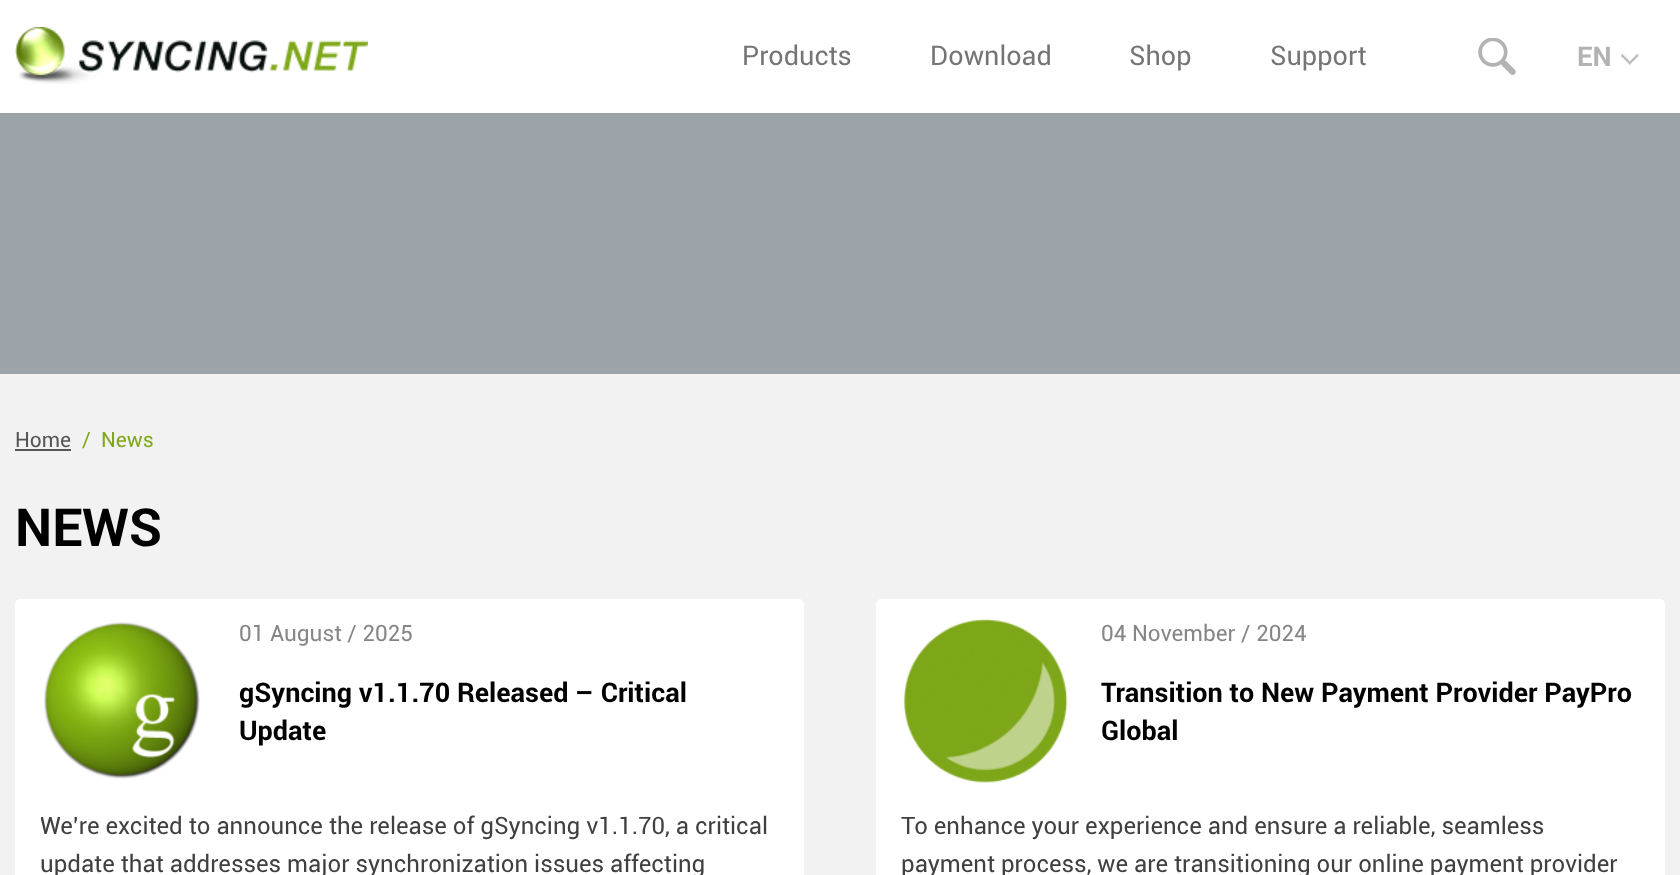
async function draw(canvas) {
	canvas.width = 1680;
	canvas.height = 875;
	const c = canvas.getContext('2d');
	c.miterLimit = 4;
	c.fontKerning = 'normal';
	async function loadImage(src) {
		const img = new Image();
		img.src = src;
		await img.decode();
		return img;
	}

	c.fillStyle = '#f2f2f2';
	c.fillRect(0, 0, 1680, 875);
	c.fillStyle = '#fff';
	c.fillRect(0, 0, 1680, 113);
	c.drawImage(await loadImage('img1.png'), 15, 27, 353, 57);
	c.font = '27px Roboto';
	c.fillStyle = '#757575';
	for (const [text, x, y] of [
		['Products', 742, 65],
		['Download', 930, 65],
		['Shop', 1129, 65],
		['Support', 1270, 65],
	]) {
		c.fillText(text, x, y);
	}
	c.drawImage(await loadImage('img2.png'), 1478, 38, 38, 37);
	c.font = 'bold 27px Roboto';
	c.fillStyle = '#b3b3b3';
	c.fillText('EN', 1577, 66);
	c.drawImage(await loadImage('img3.png'), 1621, 53, 18, 12);
	c.fillStyle = '#9ca3a9';
	c.fillRect(0, 113, 1680, 261);
	c.font = '21px Roboto';
	c.fillStyle = '#565656';
	c.fillText('Home', 15, 447);
	c.fillRect(15, 449, 56, 2);
	c.fillStyle = '#7fa81b';
	c.fillText('/', 82, 447);
	c.fillText('News', 101, 447);
	c.font = 'bold 52.5px Roboto';
	c.fillStyle = '#000';
	c.fillText('NEWS', 15, 546);
	c.fillStyle = '#fff';
	c.beginPath();
	c.roundRect(15, 599, 789, 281, 5);
	c.fill();
	c.drawImage(await loadImage('img4.png'), 44, 622, 156, 157);
	c.font = '22.5px Roboto';
	c.fillStyle = '#868686';
	c.fillText('01 August / 2025', 239, 641);
	c.font = 'bold 27px Roboto';
	c.fillStyle = '#000';
	c.fillText('gSyncing v1.1.70 Released – Critical', 239, 702);
	c.fillText('Update', 239, 740);
	c.save();
	c.beginPath();
	c.rect(41, 807, 738, 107);
	c.clip();
	c.font = '24px Roboto';
	c.fillStyle = '#404040';
	c.fillText('We’re excited to announce the release of gSyncing v1.1.70, a critical', 40, 834);
	c.restore();
	c.font = '24px Roboto';
	c.fillStyle = '#404040';
	c.fillText('update that addresses major synchronization issues affecting', 40, 872);
	c.fillStyle = '#fff';
	c.beginPath();
	c.roundRect(876, 599, 789, 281, 5);
	c.fill();
	c.drawImage(await loadImage('img5.png'), 903, 619, 165, 164);
	c.font = '22.5px Roboto';
	c.fillStyle = '#868686';
	c.fillText('04 November / 2024', 1101, 641);
	c.font = 'bold 27px Roboto';
	c.fillStyle = '#000';
	c.fillText('Transition to New Payment Provider PayPro', 1101, 702);
	c.fillText('Global', 1101, 740);
	c.font = '24px Roboto';
	c.fillStyle = '#404040';
	c.fillText('To enhance your experience and ensure a reliable, seamless', 901, 834);
	c.fillText('payment process, we are transitioning our online payment provider', 901, 872);
}

draw(document.querySelector('canvas'));
